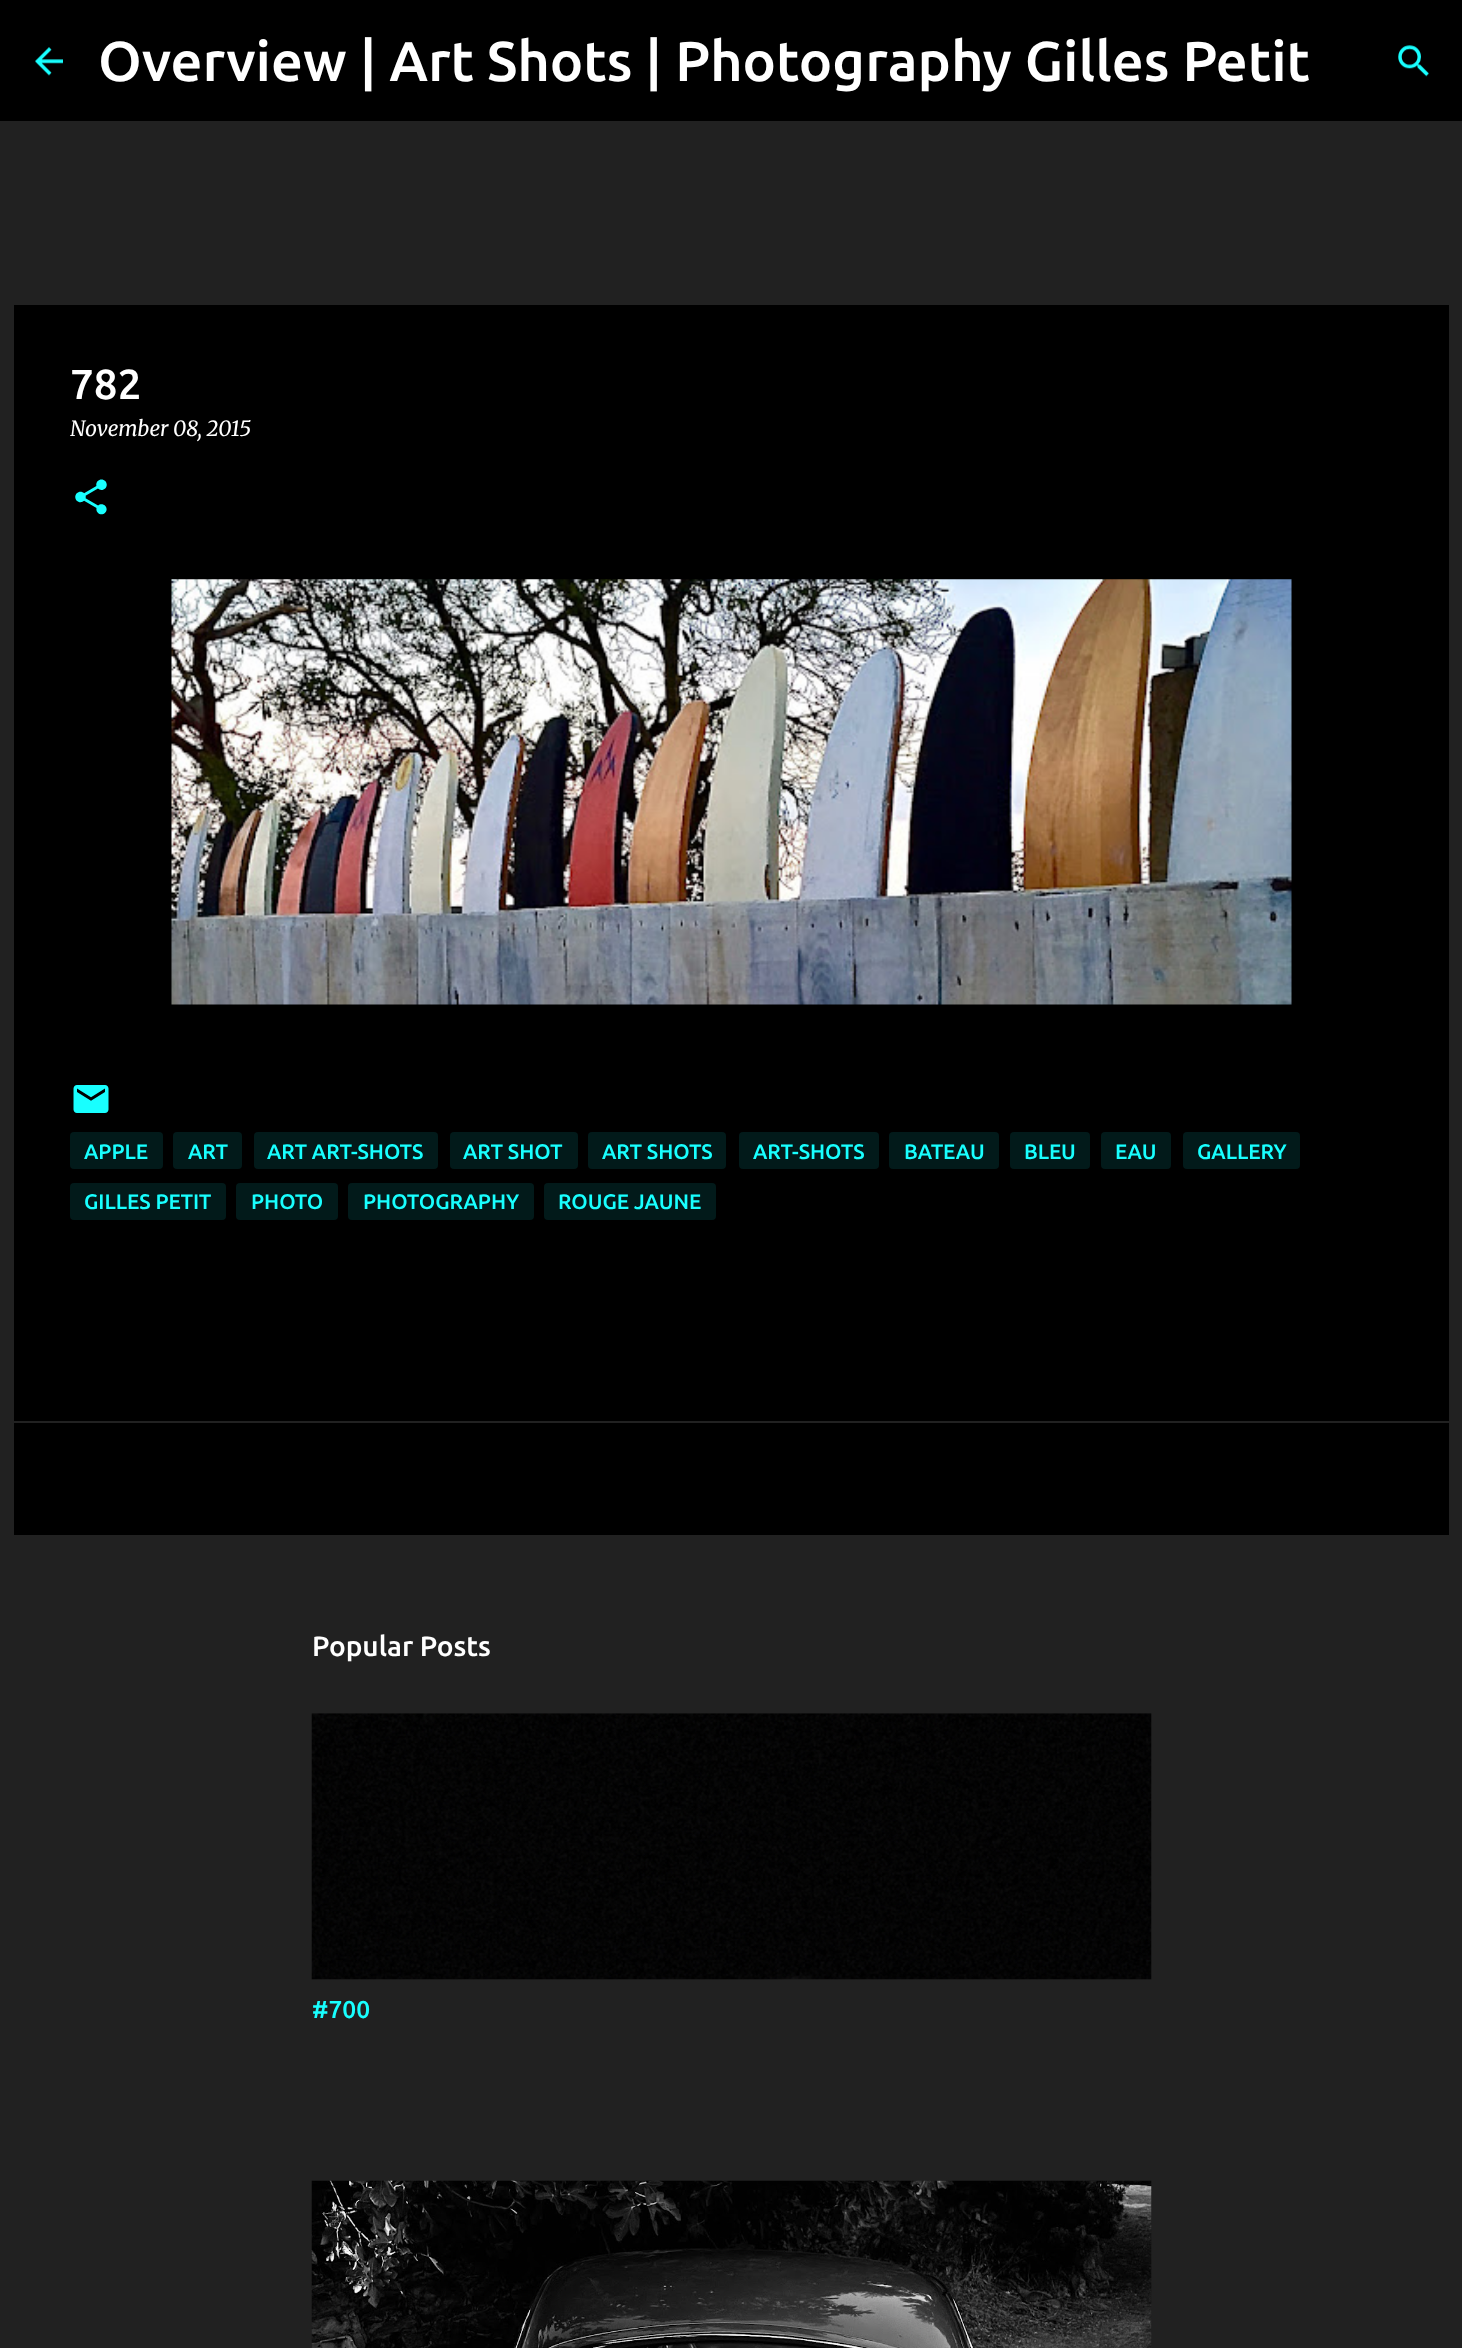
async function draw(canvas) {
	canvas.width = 1462;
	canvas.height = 2348;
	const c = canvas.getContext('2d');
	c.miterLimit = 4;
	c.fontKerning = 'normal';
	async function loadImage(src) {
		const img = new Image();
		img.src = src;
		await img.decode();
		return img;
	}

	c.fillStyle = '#212121';
	c.fillRect(0, 0, 1462, 2348);
	c.fillStyle = '#000';
	c.fillRect(0, 0, 1462, 121);
	c.drawImage(await loadImage('img1.png'), 35, 47, 28, 29);
	c.font = '500 56px Ubuntu';
	c.fillStyle = '#fff';
	c.fillText('Overview | Art Shots | Photography Gilles Petit', 98, 81);
	c.drawImage(await loadImage('img2.png'), 1398, 45, 31, 32);
	c.fillStyle = '#000';
	c.fillRect(14, 305, 1435, 1116);
	c.font = '500 42px Ubuntu';
	c.fillStyle = '#fff';
	c.fillText('782', 70, 399);
	c.font = 'italic 21px Merriweather';
	c.fillText('November 08, 2015', 70, 436);
	c.drawImage(await loadImage('img3.png'), 75, 479, 32, 36);
	c.drawImage(await loadImage('img4.png'), 171, 579, 1121, 426);
	c.drawImage(await loadImage('img5.png'), 73, 1085, 36, 28);
	c.fillStyle = '#021a1a';
	c.beginPath();
	c.roundRect(70, 1132, 93, 37, 4);
	c.fill();
	c.font = '500 21px Ubuntu';
	c.fillStyle = '#18ffff';
	c.fillText('APPLE', 84, 1159);
	c.fillStyle = '#021a1a';
	c.beginPath();
	c.roundRect(173, 1132, 69, 37, 4);
	c.fill();
	c.fillStyle = '#18ffff';
	c.fillText('ART', 188, 1159);
	c.fillStyle = '#021a1a';
	c.beginPath();
	c.roundRect(254, 1132, 184, 37, 4);
	c.fill();
	c.fillStyle = '#18ffff';
	c.fillText('ART ART-SHOTS', 267, 1159);
	c.fillStyle = '#021a1a';
	c.beginPath();
	c.roundRect(450, 1132, 128, 37, 4);
	c.fill();
	c.fillStyle = '#18ffff';
	c.fillText('ART SHOT', 463, 1159);
	c.fillStyle = '#021a1a';
	c.beginPath();
	c.roundRect(588, 1132, 138, 37, 4);
	c.fill();
	c.fillStyle = '#18ffff';
	c.fillText('ART SHOTS', 602, 1159);
	c.fillStyle = '#021a1a';
	c.beginPath();
	c.roundRect(739, 1132, 140, 37, 4);
	c.fill();
	c.fillStyle = '#18ffff';
	c.fillText('ART-SHOTS', 753, 1159);
	c.fillStyle = '#021a1a';
	c.beginPath();
	c.roundRect(889, 1132, 110, 37, 4);
	c.fill();
	c.fillStyle = '#18ffff';
	c.fillText('BATEAU', 904, 1159);
	c.fillStyle = '#021a1a';
	c.beginPath();
	c.roundRect(1010, 1132, 80, 37, 4);
	c.fill();
	c.fillStyle = '#18ffff';
	c.fillText('BLEU', 1024, 1159);
	c.fillStyle = '#021a1a';
	c.beginPath();
	c.roundRect(1101, 1132, 70, 37, 4);
	c.fill();
	c.fillStyle = '#18ffff';
	c.fillText('EAU', 1115, 1159);
	c.fillStyle = '#021a1a';
	c.beginPath();
	c.roundRect(1183, 1132, 117, 37, 4);
	c.fill();
	c.fillStyle = '#18ffff';
	c.fillText('GALLERY', 1197, 1159);
	c.fillStyle = '#021a1a';
	c.beginPath();
	c.roundRect(70, 1183, 156, 37, 4);
	c.fill();
	c.fillStyle = '#18ffff';
	c.fillText('GILLES PETIT', 84, 1209);
	c.fillStyle = '#021a1a';
	c.beginPath();
	c.roundRect(236, 1183, 102, 37, 4);
	c.fill();
	c.fillStyle = '#18ffff';
	c.fillText('PHOTO', 251, 1209);
	c.fillStyle = '#021a1a';
	c.beginPath();
	c.roundRect(348, 1183, 186, 37, 4);
	c.fill();
	c.fillStyle = '#18ffff';
	c.fillText('PHOTOGRAPHY', 363, 1209);
	c.fillStyle = '#021a1a';
	c.beginPath();
	c.roundRect(544, 1183, 172, 37, 4);
	c.fill();
	c.fillStyle = '#18ffff';
	c.fillText('ROUGE JAUNE', 558, 1209);
	c.fillStyle = '#000';
	c.fillRect(14, 1423, 1435, 112);
	c.font = '500 28px Ubuntu';
	c.fillStyle = '#fff';
	c.fillText('Popular Posts', 312, 1656);
	c.drawImage(await loadImage('img6.png'), 311, 1713, 841, 267);
	c.font = '500 24.5px Ubuntu';
	c.fillStyle = '#18ffff';
	c.fillText('#700', 312, 2018);
	c.drawImage(await loadImage('img7.png'), 311, 2180, 841, 168);
}

draw(document.querySelector('canvas'));
